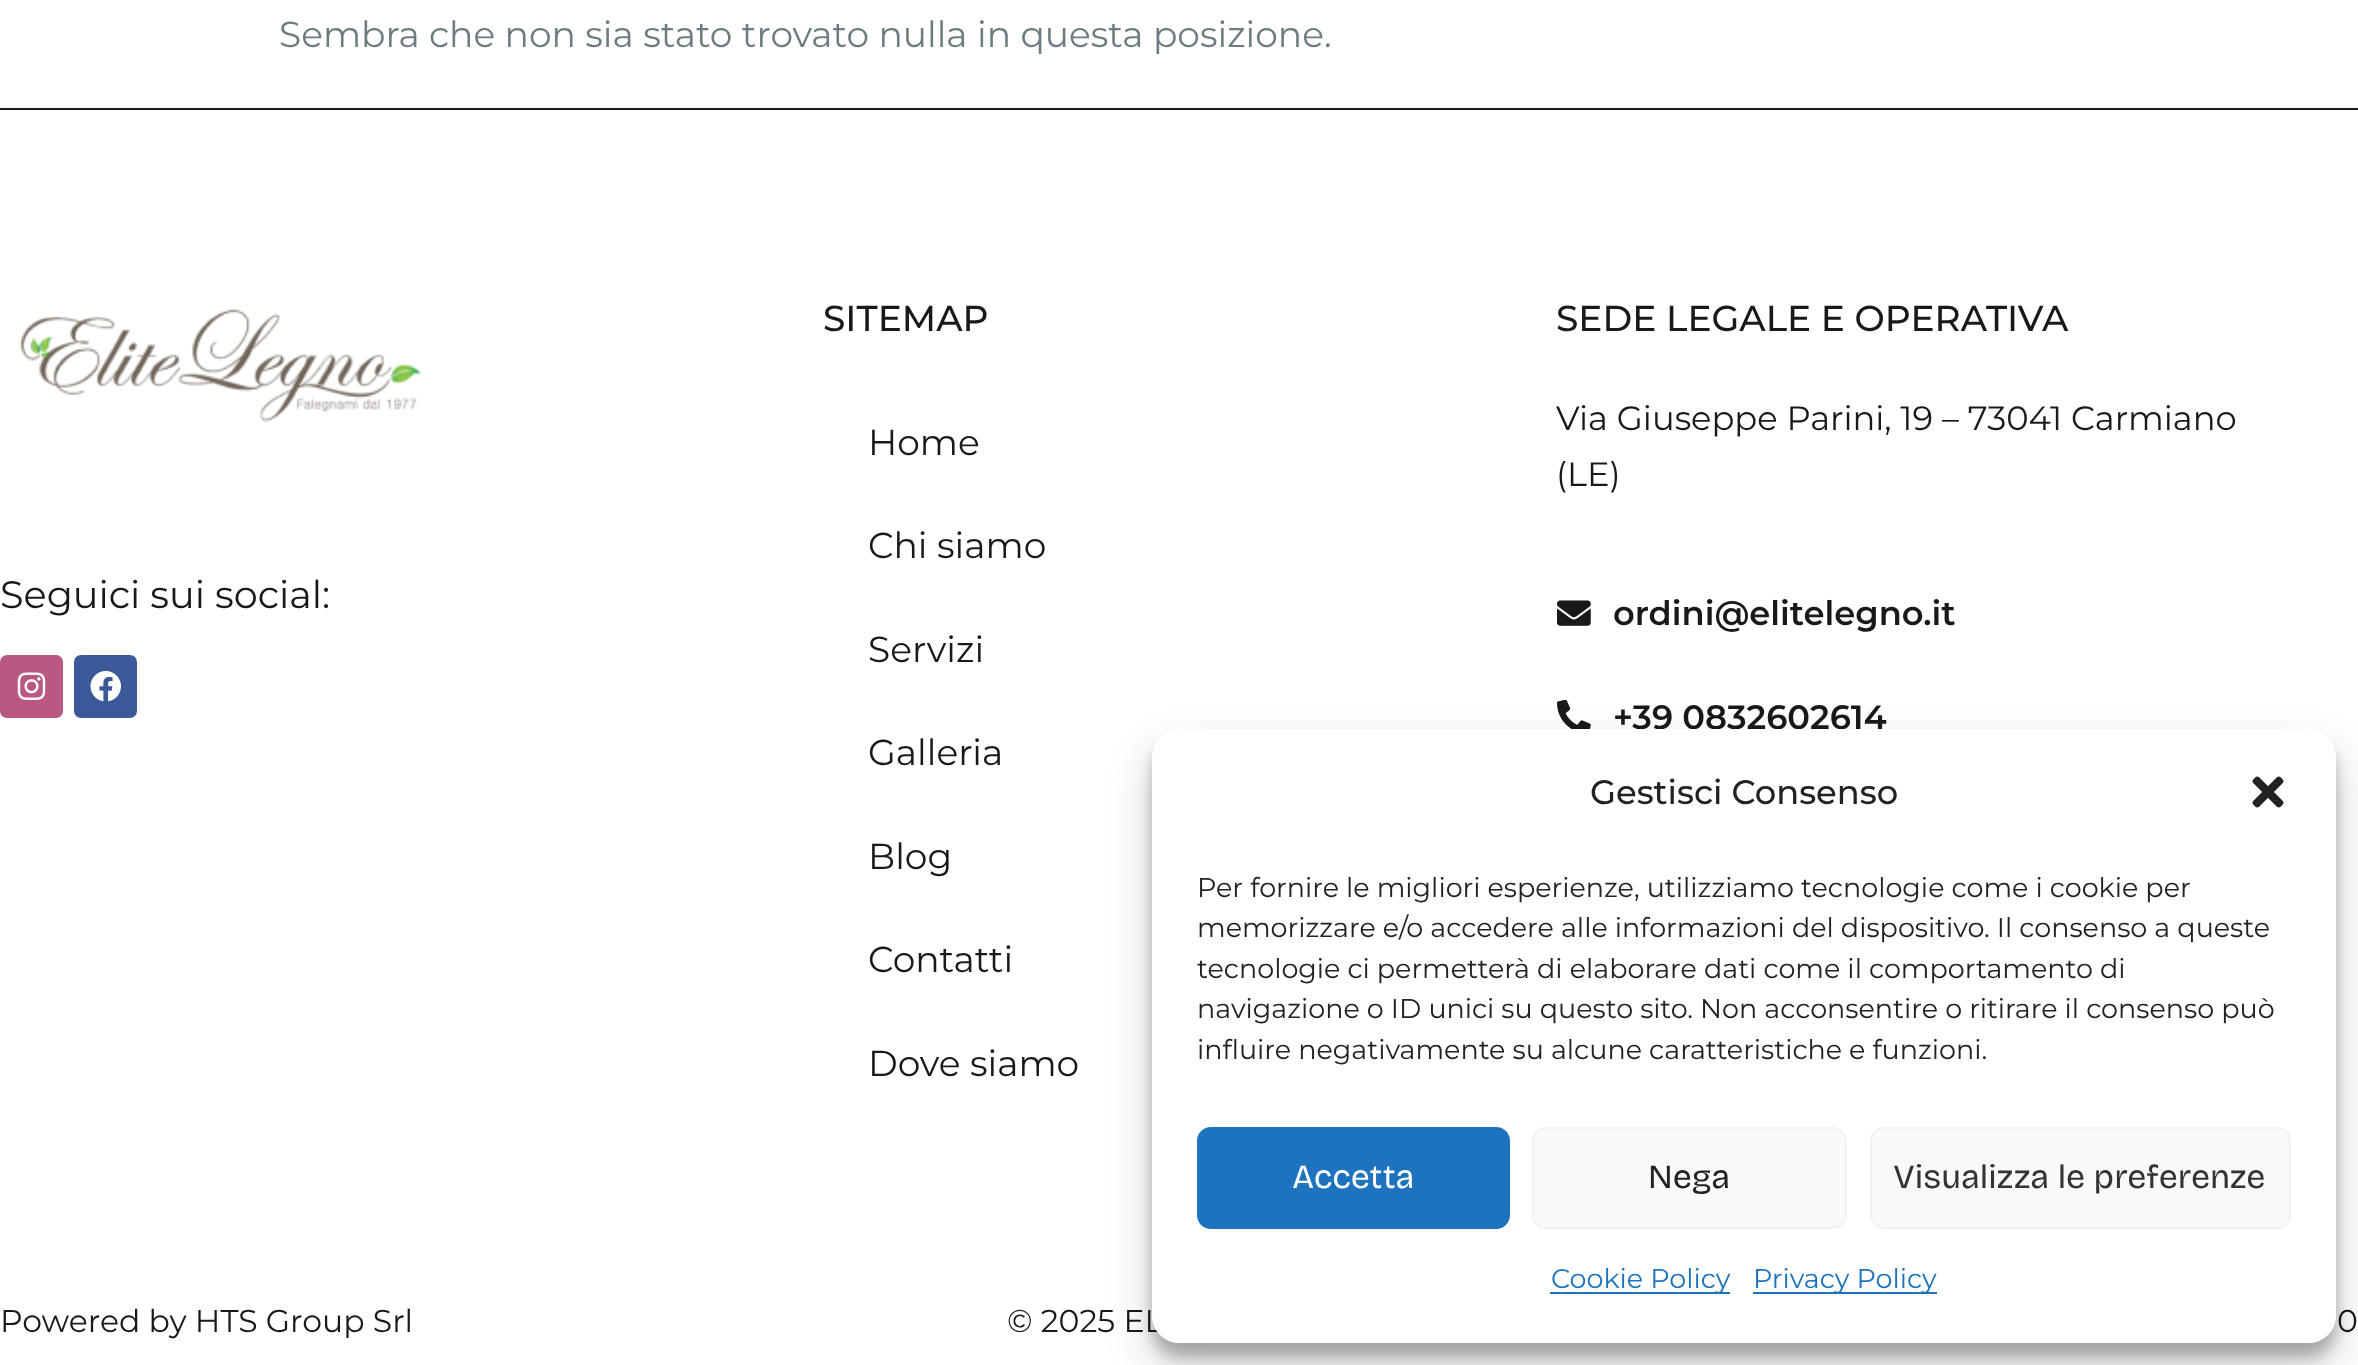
async function draw(canvas) {
	canvas.width = 2358;
	canvas.height = 1365;
	const c = canvas.getContext('2d');
	c.miterLimit = 4;
	c.fontKerning = 'normal';
	async function loadImage(src) {
		const img = new Image();
		img.src = src;
		await img.decode();
		return img;
	}

	c.fillStyle = '#fff';
	c.fillRect(0, 0, 2358, 1365);
	c.font = '36px Montserrat';
	c.fillStyle = '#6c7c81';
	c.fillText('Sembra che non sia stato trovato nulla in questa posizione.', 279, 47);
	c.fillStyle = '#17191b';
	c.fillRect(0, 108, 2358, 2);
	c.drawImage(await loadImage('img1.png'), 19, 309, 403, 113);
	c.font = '38.25px Montserrat';
	c.fillText('Seguici sui social:', 0, 608);
	c.fillStyle = '#b95882';
	c.beginPath();
	c.roundRect(0, 655, 63, 63, 7);
	c.fill();
	c.drawImage(await loadImage('img2.png'), 17, 672, 29, 28);
	c.fillStyle = '#3b5998';
	c.beginPath();
	c.roundRect(74, 655, 63, 63, 7);
	c.fill();
	c.drawImage(await loadImage('img3.png'), 90, 671, 31, 31);
	c.font = '500 36px Montserrat';
	c.fillStyle = '#17191b';
	c.fillText('SITEMAP', 823, 331);
	c.font = '36px Montserrat';
	for (const [text, x, y] of [
		['Home', 868, 455],
		['Chi siamo', 868, 558],
		['Servizi', 868, 662],
		['Galleria', 868, 765],
		['Blog', 868, 869],
		['Contatti', 868, 972],
		['Dove siamo', 868, 1076],
	]) {
		c.fillText(text, x, y);
	}
	c.font = '500 36px Montserrat';
	c.fillText('SEDE LEGALE E OPERATIVA', 1556, 331);
	c.font = '33.75px Montserrat';
	c.fillText('Via Giuseppe Parini, 19 – 73041 Carmiano', 1556, 430);
	c.fillText('(LE)', 1556, 486);
	c.drawImage(await loadImage('img4.png'), 1557, 600, 34, 26);
	c.font = '600 33.75px Montserrat';
	c.fillText('ordini@elitelegno.it', 1613, 625);
	c.drawImage(await loadImage('img5.png'), 1557, 700, 34, 29);
	c.fillText('+39 0832602614', 1613, 729);
	c.font = '31.5px Montserrat';
	for (const [text, x, y] of [
		['Powered by HTS Group Srl', 0, 1332],
		['© 2025 EL', 1007, 1332],
		['0', 2337, 1332],
	]) {
		c.fillText(text, x, y);
	}
	c.fillStyle = '#0000003b';
	c.filter = 'blur(7px)';
	c.beginPath();
	c.roundRect(1152, 743, 1184, 614, 27);
	c.fill();
	c.filter = 'none';
	c.fillStyle = '#00000030';
	c.filter = 'blur(22.5px)';
	c.beginPath();
	c.roundRect(1152, 752, 1184, 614, 27);
	c.fill();
	c.filter = 'none';
	c.fillStyle = '#fff';
	c.beginPath();
	c.roundRect(1152, 729, 1184, 614, 27);
	c.fill();
	c.font = '500 33.75px Montserrat';
	c.fillStyle = '#222';
	c.fillText('Gestisci Consenso', 1590, 804);
	c.drawImage(await loadImage('img6.png'), 2252, 776, 32, 32);
	c.font = '27px Montserrat';
	for (const [text, x, y] of [
		['Per fornire le migliori esperienze, utilizziamo tecnologie come i cookie per', 1197, 897],
		['memorizzare e/o accedere alle informazioni del dispositivo. Il consenso a queste', 1197, 937],
		['tecnologie ci permetterà di elaborare dati come il comportamento di', 1197, 978],
		['navigazione o ID unici su questo sito. Non acconsentire o ritirare il consenso può', 1197, 1018],
		['influire negativamente su alcune caratteristiche e funzioni.', 1197, 1059],
	]) {
		c.fillText(text, x, y);
	}
	c.fillStyle = '#1e73be';
	c.beginPath();
	c.roundRect(1198, 1128, 311, 100, 13);
	c.fill();
	c.strokeStyle = '#1e73be';
	c.lineWidth = 2;
	c.stroke();
	c.font = '800 33.75px Bricolage Grotesque';
	c.fillStyle = '#fff';
	c.fillText('Accetta', 1292, 1188);
	c.fillStyle = '#f9f9f9';
	c.beginPath();
	c.roundRect(1533, 1128, 313, 100, 13);
	c.fill();
	c.strokeStyle = '#f2f2f2';
	c.stroke();
	c.fillStyle = '#222';
	c.fillText('Nega', 1648, 1188);
	c.fillStyle = '#f9f9f9';
	c.beginPath();
	c.roundRect(1871, 1128, 419, 100, 13);
	c.fill();
	c.stroke();
	c.fillStyle = '#333';
	c.fillText('Visualizza le preferenze', 1893, 1188);
	c.fillStyle = '#1e73be';
	c.fillRect(1550, 1292, 180, 2);
	c.font = '27px Montserrat';
	c.fillText('Cookie Policy', 1551, 1288);
	c.fillRect(1753, 1292, 184, 2);
	c.fillText('Privacy Policy', 1753, 1288);
}

draw(document.querySelector('canvas'));
